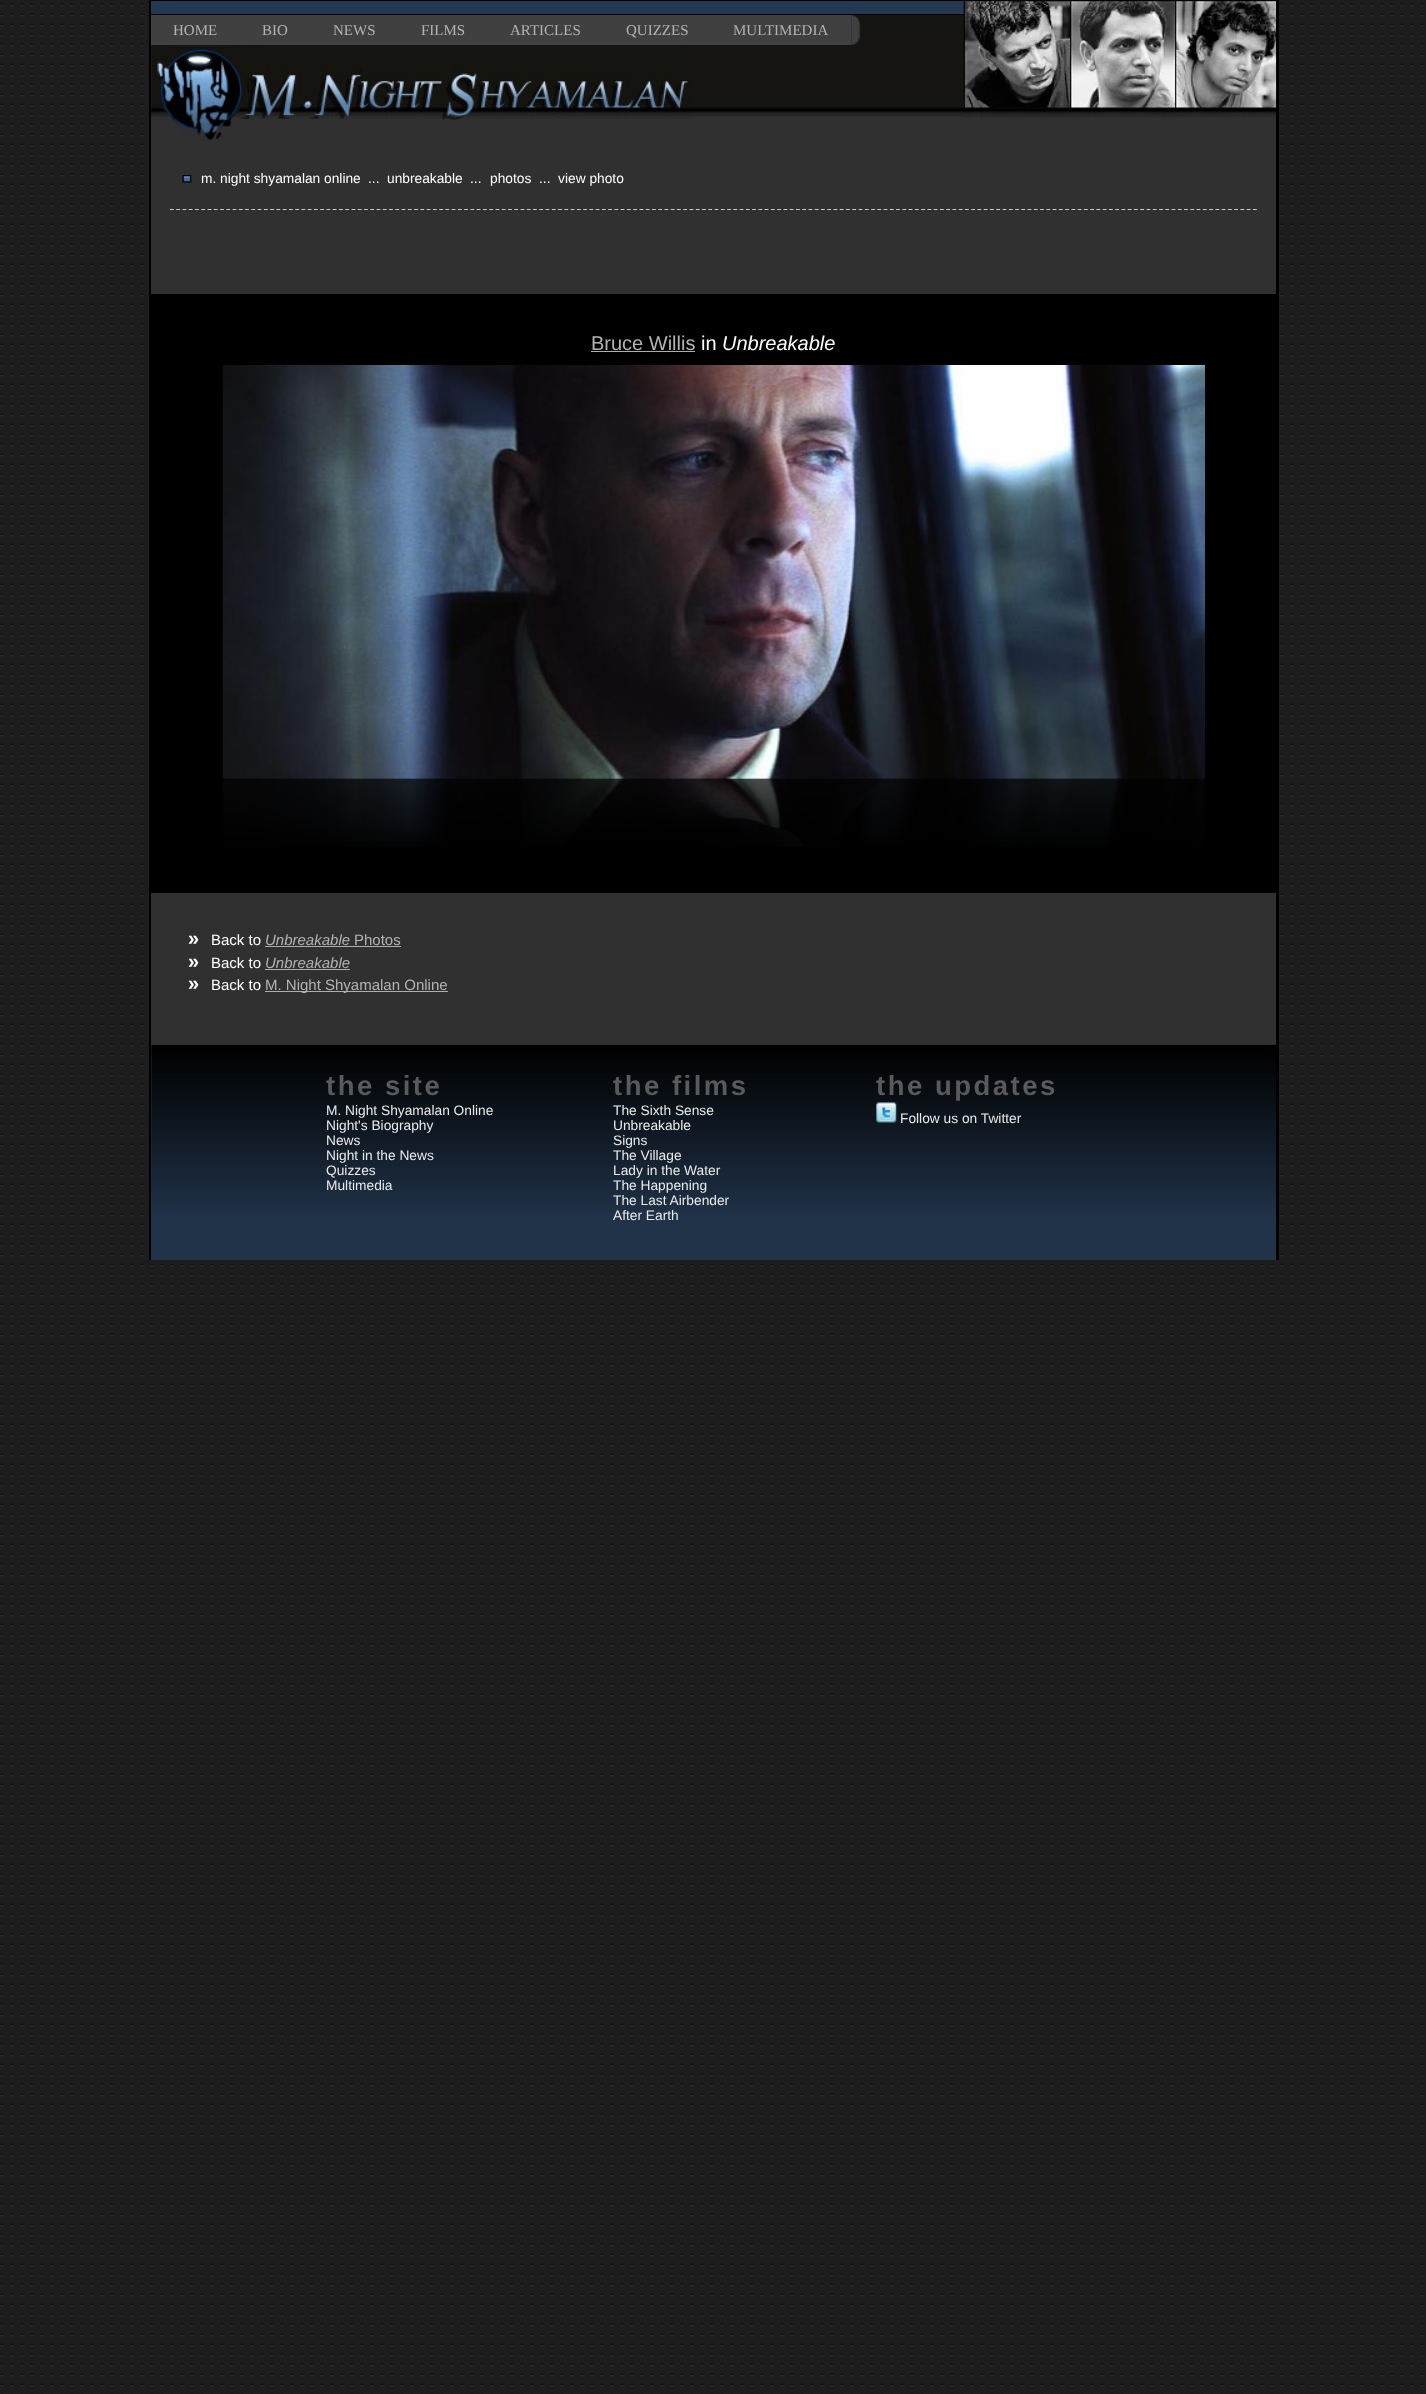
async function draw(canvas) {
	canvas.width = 1426;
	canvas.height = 2394;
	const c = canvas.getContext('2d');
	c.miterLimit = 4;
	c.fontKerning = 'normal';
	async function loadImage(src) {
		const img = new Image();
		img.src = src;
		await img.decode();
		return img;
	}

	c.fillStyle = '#1d1d1d';
	c.fillRect(0, 0, 1426, 2394);
	c.drawImage(await loadImage('img1.png'), 1, 3, 1422, 2391);
	for (const [x, y, w, h, color] of [
		[1276, 0, 3, 1260, '#000'],
		[149, 0, 2, 1260, '#000'],
		[851, 15, 113, 20, '#141410'],
		[151, 0, 813, 1, '#000'],
		[151, 1, 813, 13, '#243951'],
		[151, 14, 813, 1, '#000'],
		[151, 45, 1125, 1000, '#303030'],
	]) {
		c.fillStyle = color;
		c.fillRect(x, y, w, h);
	}
	c.drawImage(await loadImage('img3.png'), 151, 35, 813, 82);
	c.fillStyle = '#404040';
	c.fillRect(151, 15, 700, 30);
	c.font = '15px Liberation Serif';
	c.fillStyle = '#b3b3b3';
	for (const [text, x, y] of [
		['HOME', 173, 35],
		['BIO', 262, 35],
		['NEWS', 333, 35],
		['FILMS', 421, 35],
		['ARTICLES', 510, 35],
		['QUIZZES', 626, 35],
		['MULTIMEDIA', 733, 35],
	]) {
		c.fillText(text, x, y);
	}
	c.drawImage(await loadImage('img2.png'), 851, 15, 10, 30);
	c.drawImage(await loadImage('img4.png'), 151, 45, 541, 96);
	c.drawImage(await loadImage('img5.png'), 963, 0, 314, 118);
	c.drawImage(await loadImage('img6.png'), 182, 175, 10, 8);
	c.font = '13.75px Liberation Sans';
	c.fillStyle = '#fff';
	for (const [text, x, y] of [
		['m. night shyamalan online', 201, 183],
		['...', 368, 183],
		['unbreakable', 387, 183],
		['...', 470, 183],
		['photos', 490, 183],
		['...  view photo', 539, 183],
	]) {
		c.fillText(text, x, y);
	}
	c.beginPath();
	c.moveTo(170, 209.5);
	c.lineTo(1257.5, 209.5);
	c.strokeStyle = '#ccc';
	c.lineWidth = 1.2;
	c.setLineDash([3.75, 2.51]);
	c.stroke();
	c.fillStyle = '#000';
	c.fillRect(151, 294, 1125, 599);
	c.font = '20px Liberation Sans';
	c.fillStyle = '#b3b3b3';
	c.fillText('Bruce Willis', 591, 350);
	c.fillStyle = '#aeaeae';
	c.fillRect(591, 351, 104, 1);
	c.fillStyle = '#fff';
	c.fillText('in', 701, 350);
	c.font = 'italic 20px Liberation Sans';
	c.fillText('Unbreakable', 722, 350);
	c.drawImage(await loadImage('img7.png'), 222, 365, 983, 414);
	c.drawImage(await loadImage('img8.png'), 223, 778, 982, 69);
	c.font = 'bold 20px Liberation Sans';
	c.fillText('»', 188, 945);
	c.font = '15px Liberation Sans';
	c.fillText('Back to', 211, 945);
	c.font = 'italic 15px Liberation Sans';
	c.fillStyle = '#b3b3b3';
	c.fillText('Unbreakable', 265, 945);
	c.fillStyle = '#aeaeae';
	c.fillRect(265, 946, 136, 1);
	c.font = '15px Liberation Sans';
	c.fillStyle = '#b3b3b3';
	c.fillText('Photos', 354, 945);
	c.font = 'bold 20px Liberation Sans';
	c.fillStyle = '#fff';
	c.fillText('»', 188, 968);
	c.font = '15px Liberation Sans';
	c.fillText('Back to', 211, 968);
	c.font = 'italic 15px Liberation Sans';
	c.fillStyle = '#b3b3b3';
	c.fillText('Unbreakable', 265, 968);
	c.fillStyle = '#aeaeae';
	c.fillRect(265, 969, 85, 1);
	c.font = 'bold 20px Liberation Sans';
	c.fillStyle = '#fff';
	c.fillText('»', 188, 990);
	c.font = '15px Liberation Sans';
	c.fillText('Back to', 211, 990);
	c.fillStyle = '#aeaeae';
	c.fillRect(265, 991, 183, 1);
	c.fillStyle = '#b3b3b3';
	c.fillText('M. Night Shyamalan Online', 265, 990);
	c.fillStyle = '#203348';
	c.fillRect(151, 1045, 1125, 215);
	c.drawImage(await loadImage('img9.png'), 151, 1045, 1126, 175);
	c.letterSpacing = '2.5px';
	c.font = 'bold 27.5px Liberation Sans';
	c.fillStyle = '#5a5a5a';
	c.fillText('the site', 326, 1095);
	c.letterSpacing = '0px';
	c.font = '13.75px Liberation Sans';
	c.fillStyle = '#e9e9e9';
	for (const [text, x, y] of [
		['M. Night Shyamalan Online', 326, 1115],
		['Night\'s Biography', 326, 1130],
		['News', 326, 1145],
		['Night in the News', 326, 1160],
		['Quizzes', 326, 1175],
		['Multimedia', 326, 1190],
	]) {
		c.fillText(text, x, y);
	}
	c.letterSpacing = '2.5px';
	c.font = 'bold 27.5px Liberation Sans';
	c.fillStyle = '#5a5a5a';
	c.fillText('the films', 613, 1095);
	c.letterSpacing = '0px';
	c.font = '13.75px Liberation Sans';
	c.fillStyle = '#e9e9e9';
	for (const [text, x, y] of [
		['The Sixth Sense', 613, 1115],
		['Unbreakable', 613, 1130],
		['Signs', 613, 1145],
		['The Village', 613, 1160],
		['Lady in the Water', 613, 1175],
		['The Happening', 613, 1190],
		['The Last Airbender', 613, 1205],
		['After Earth', 613, 1220],
	]) {
		c.fillText(text, x, y);
	}
	c.letterSpacing = '2.5px';
	c.font = 'bold 27.5px Liberation Sans';
	c.fillStyle = '#5a5a5a';
	c.fillText('the updates', 876, 1095);
	c.drawImage(await loadImage('img10.png'), 876, 1102, 21, 21);
	c.letterSpacing = '0px';
	c.font = '13.75px Liberation Sans';
	c.fillStyle = '#e9e9e9';
	c.fillText('Follow us on Twitter', 900, 1123);
}

draw(document.querySelector('canvas'));
